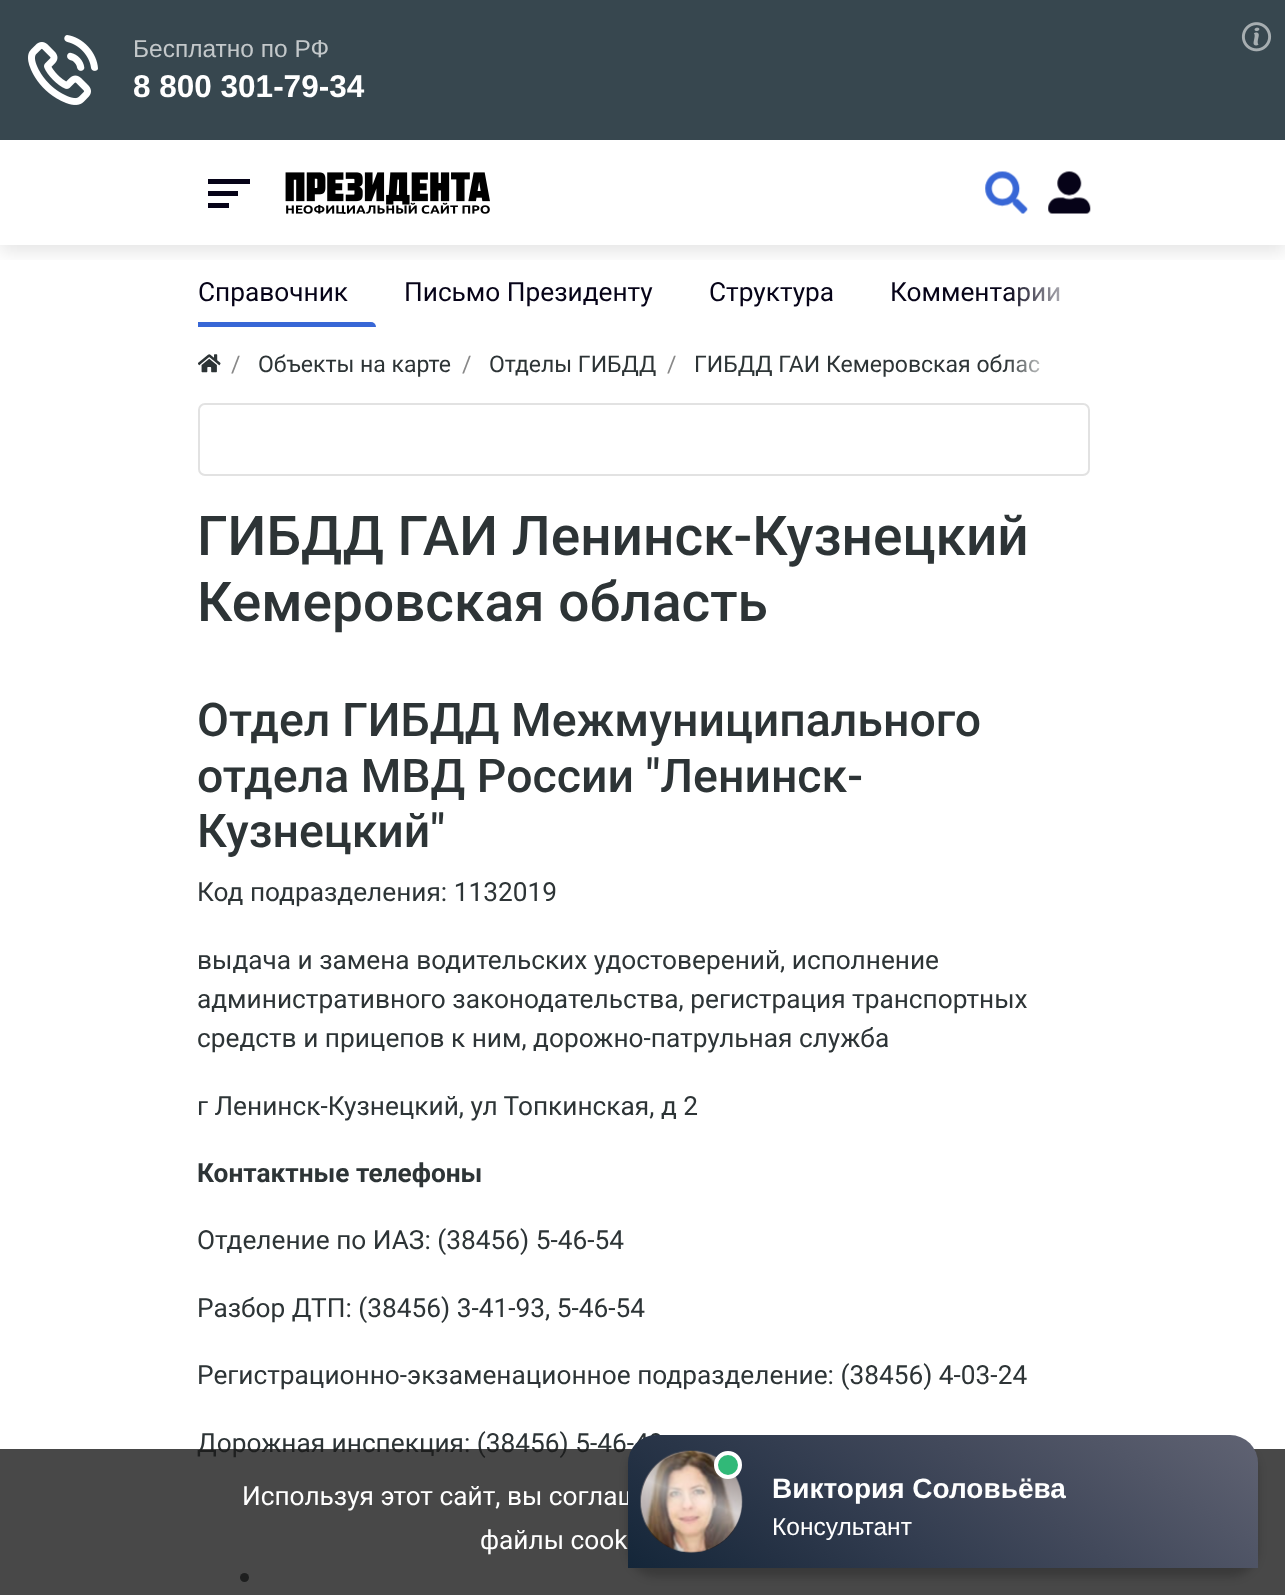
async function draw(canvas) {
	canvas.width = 1285;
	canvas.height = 1595;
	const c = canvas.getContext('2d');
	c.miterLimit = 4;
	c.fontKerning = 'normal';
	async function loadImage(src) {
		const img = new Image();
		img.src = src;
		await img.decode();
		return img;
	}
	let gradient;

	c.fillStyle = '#fff';
	c.fillRect(0, 0, 1285, 1595);
	c.save();
	c.beginPath();
	c.rect(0, 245, 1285, 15);
	c.clip();
	c.fillStyle = '#0000001a';
	c.filter = 'blur(9px)';
	c.beginPath();
	c.rect(0, 147, 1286, 105);
	c.fill();
	c.filter = 'none';
	c.restore();
	c.fillStyle = '#37474f';
	c.fillRect(0, 0, 1285, 140);
	c.drawImage(await loadImage('img1.png'), 1241, 22, 31, 30);
	c.drawImage(await loadImage('img2.png'), 28, 35, 70, 70);
	c.font = '24.5px Liberation Sans';
	c.fillStyle = '#c3c8ca';
	c.fillText('Бесплатно по РФ', 133, 57);
	c.font = 'bold 31.5px Liberation Sans';
	c.fillStyle = '#fff';
	c.fillText('8 800 301-79-34', 133, 97);
	for (const [x, y, w, h, color] of [
		[208, 179, 42, 5, '#060318'],
		[208, 191, 30, 5, '#060318'],
		[208, 203, 21, 5, '#060318'],
	]) {
		c.fillStyle = color;
		c.fillRect(x, y, w, h);
	}
	c.drawImage(await loadImage('img3.png'), 285, 172, 205, 42);
	c.drawImage(await loadImage('img4.png'), 985, 171, 43, 43);
	c.drawImage(await loadImage('img5.png'), 1048, 171, 43, 43);
	c.font = '26.25px Roboto';
	c.fillText('Справочник', 198, 301);
	c.fillStyle = '#3867d6';
	c.beginPath();
	c.roundRect(198, 322, 178, 5, [0, 5, 0, 0]);
	c.fill();
	c.fillStyle = '#060318';
	for (const [text, x, y] of [
		['Письмо Президенту', 404, 301],
		['Структура', 709, 301],
		['Комментарии', 890, 301],
	]) {
		c.fillText(text, x, y);
	}
	gradient = c.createLinearGradient(1090, 293, 1006, 293);
	gradient.addColorStop(0, '#fff');
	gradient.addColorStop(1, '#ffffff00');
	c.fillStyle = gradient;
	c.fillRect(1008, 286, 52, 21);
	c.drawImage(await loadImage('img6.png'), 198, 354, 23, 19);
	c.font = '23px Roboto';
	c.fillStyle = '#888';
	c.fillText('/', 231, 372);
	c.fillStyle = '#2d3436';
	c.fillText('Объекты на карте', 258, 372);
	c.fillStyle = '#888';
	c.fillText('/', 462, 372);
	c.fillStyle = '#2d3436';
	c.fillText('Отделы ГИБДД', 489, 372);
	c.fillStyle = '#888';
	c.fillText('/', 667, 372);
	c.fillStyle = '#2d3436';
	c.fillText('ГИБДД ГАИ Кемеровская облас', 694, 372);
	gradient = c.createLinearGradient(1090, 365, 1006, 365);
	gradient.addColorStop(0.4, '#fff');
	gradient.addColorStop(1, '#ffffff00');
	c.fillStyle = gradient;
	c.beginPath();
	c.roundRect(1006, 327, 84, 76, [0, 7, 7, 0]);
	c.fill();
	c.beginPath();
	c.roundRect(199, 404, 890, 71, 6);
	c.strokeStyle = '#e2e2e2';
	c.lineWidth = 2;
	c.stroke();
	c.font = '500 55px Roboto';
	c.fillStyle = '#2d3436';
	c.fillText('ГИБДД ГАИ Ленинск-Кузнецкий', 197, 555);
	c.fillText('Кемеровская область', 197, 621);
	c.font = '500 46.4px Roboto';
	for (const [text, x, y] of [
		['Отдел ГИБДД Межмуниципального', 197, 736],
		['отдела МВД России "Ленинск-', 197, 792],
		['Кузнецкий"', 197, 847],
	]) {
		c.fillText(text, x, y);
	}
	c.font = '26.25px Roboto';
	for (const [text, x, y] of [
		['Код подразделения: 1132019', 197, 901],
		['выдача и замена водительских удостоверений, исполнение', 197, 969],
		['административного законодательства, регистрация транспортных', 197, 1008],
		['средств и прицепов к ним, дорожно-патрульная служба', 197, 1047],
		['г Ленинск-Кузнецкий, ул Топкинская, д 2', 197, 1115],
	]) {
		c.fillText(text, x, y);
	}
	c.font = 'bold 26.25px Roboto';
	c.fillText('Контактные телефоны', 197, 1182);
	c.font = '26.25px Roboto';
	for (const [text, x, y] of [
		['Отделение по ИАЗ: (38456) 5-46-54', 197, 1249],
		['Разбор ДТП: (38456) 3-41-93, 5-46-54', 197, 1317],
		['Регистрационно-экзаменационное подразделение: (38456) 4-03-24', 197, 1384],
		['Дорожная инспекция: (38456) 5-46-49', 197, 1452],
	]) {
		c.fillText(text, x, y);
	}
	c.beginPath();
	c.arc(244.5, 1577.5, 4.5, 0, 2 * Math.PI);
	c.fill();
	c.fillStyle = '#1a1a1acc';
	c.fillRect(0, 1449, 1285, 146);
	c.fillStyle = '#fff';
	c.fillText('Используя этот сайт, вы соглаш', 242, 1505);
	c.fillText('файлы cook', 480, 1549);
	c.fillStyle = '#00000033';
	c.filter = 'blur(4.5px)';
	c.beginPath();
	c.roundRect(628, 1444, 630, 133, 28);
	c.fill();
	c.filter = 'none';
	gradient = c.createLinearGradient(808, 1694, 1078, 1309);
	gradient.addColorStop(0, '#142639');
	gradient.addColorStop(0.2, '#243144');
	gradient.addColorStop(0.4, '#333d50');
	gradient.addColorStop(0.6, '#42495b');
	gradient.addColorStop(0.8, '#515667');
	gradient.addColorStop(1, '#606373');
	c.fillStyle = gradient;
	c.beginPath();
	c.roundRect(628, 1435, 630, 133, [28, 28, 0, 0]);
	c.fill();
	c.drawImage(await loadImage('img7.png'), 640, 1450, 103, 103);
	gradient = c.createLinearGradient(709, 1460, 674, 1555);
	gradient.addColorStop(0, '#ffffff00');
	gradient.addColorStop(0.4, '#ffffff99');
	gradient.addColorStop(0.6, '#ffffff5c');
	gradient.addColorStop(1, '#ffffff00');
	c.fillStyle = gradient;
	c.beginPath();
	c.moveTo(685, 1451);
	c.lineTo(729, 1467);
	c.bezierCurveTo(737, 1476, 742, 1488, 742, 1502);
	c.bezierCurveTo(742, 1529, 719, 1552, 692, 1552);
	c.bezierCurveTo(664, 1552, 641, 1529, 641, 1502);
	c.bezierCurveTo(641, 1476, 660, 1455, 685, 1451);
	c.closePath();
	c.fill();
	c.fillStyle = '#31b978';
	c.beginPath();
	c.arc(728, 1465, 12, 0, 2 * Math.PI);
	c.fill();
	c.strokeStyle = '#fff';
	c.lineWidth = 4;
	c.stroke();
	c.font = 'bold 28px Liberation Sans';
	c.fillStyle = '#fff';
	c.fillText('Виктория Соловьёва', 772, 1498);
	c.font = '24.5px Liberation Sans';
	c.fillText('Консультант', 772, 1535);
}

draw(document.querySelector('canvas'));
